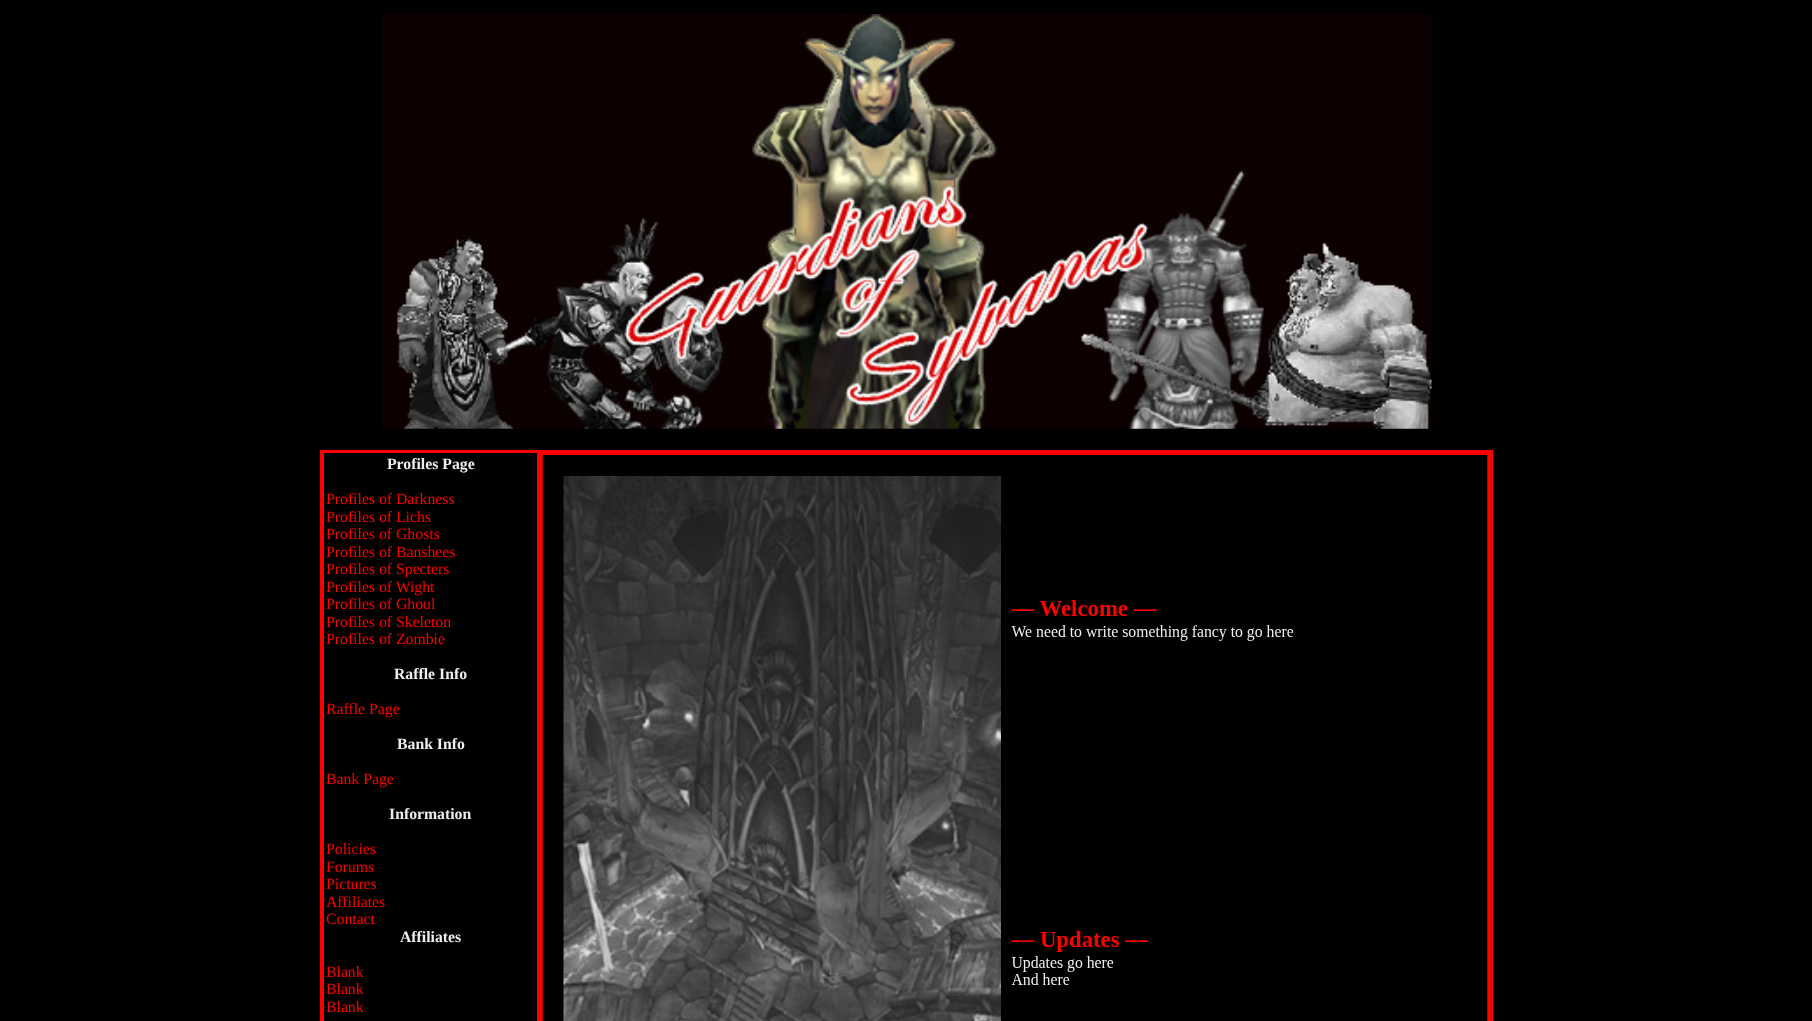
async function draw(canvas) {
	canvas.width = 1812;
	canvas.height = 1021;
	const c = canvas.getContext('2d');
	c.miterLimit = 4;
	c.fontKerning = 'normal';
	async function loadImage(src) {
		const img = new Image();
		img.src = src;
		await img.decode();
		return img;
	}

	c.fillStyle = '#000';
	c.fillRect(0, 0, 1812, 1021);
	c.drawImage(await loadImage('img1.png'), 381, 14, 1051, 415);
	c.fillStyle = '#f00';
	c.fillRect(320, 450, 1173, 571);
	c.fillStyle = '#000';
	c.fillRect(324, 453, 213, 568);
	c.font = 'bold 15.75px Liberation Serif';
	c.fillStyle = '#eee';
	c.fillText('Profiles Page', 387, 469);
	c.font = '15.75px Liberation Serif';
	c.fillStyle = '#f00';
	for (const [text, x, y] of [
		['Profiles of Darkness', 326, 504],
		['Profiles of Lichs', 326, 522],
		['Profiles of Ghosts', 326, 539],
		['Profiles of Banshees', 326, 557],
		['Profiles of Specters', 326, 574],
		['Profiles of Wight', 326, 592],
		['Profiles of Ghoul', 326, 609],
		['Profiles of Skeleton', 326, 627],
		['Profiles of Zombie', 326, 644],
	]) {
		c.fillText(text, x, y);
	}
	c.font = 'bold 15.75px Liberation Serif';
	c.fillStyle = '#eee';
	c.fillText('Raffle Info', 394, 679);
	c.font = '15.75px Liberation Serif';
	c.fillStyle = '#f00';
	c.fillText('Raffle Page', 326, 714);
	c.font = 'bold 15.75px Liberation Serif';
	c.fillStyle = '#eee';
	c.fillText('Bank Info', 397, 749);
	c.font = '15.75px Liberation Serif';
	c.fillStyle = '#f00';
	c.fillText('Bank Page', 326, 784);
	c.font = 'bold 15.75px Liberation Serif';
	c.fillStyle = '#eee';
	c.fillText('Information', 389, 819);
	c.font = '15.75px Liberation Serif';
	c.fillStyle = '#f00';
	for (const [text, x, y] of [
		['Policies', 326, 854],
		['Forums', 326, 872],
		['Pictures', 326, 889],
		['Affiliates', 326, 907],
		['Contact', 326, 924],
	]) {
		c.fillText(text, x, y);
	}
	c.font = 'bold 15.75px Liberation Serif';
	c.fillStyle = '#eee';
	c.fillText('Affiliates', 400, 942);
	c.font = '15.75px Liberation Serif';
	c.fillStyle = '#f00';
	for (const [text, x, y] of [
		['Blank', 326, 977],
		['Blank', 326, 994],
		['Blank', 326, 1012],
	]) {
		c.fillText(text, x, y);
	}
	c.drawImage(await loadImage('img2.png'), 542, 455, 946, 566);
}

draw(document.querySelector('canvas'));
